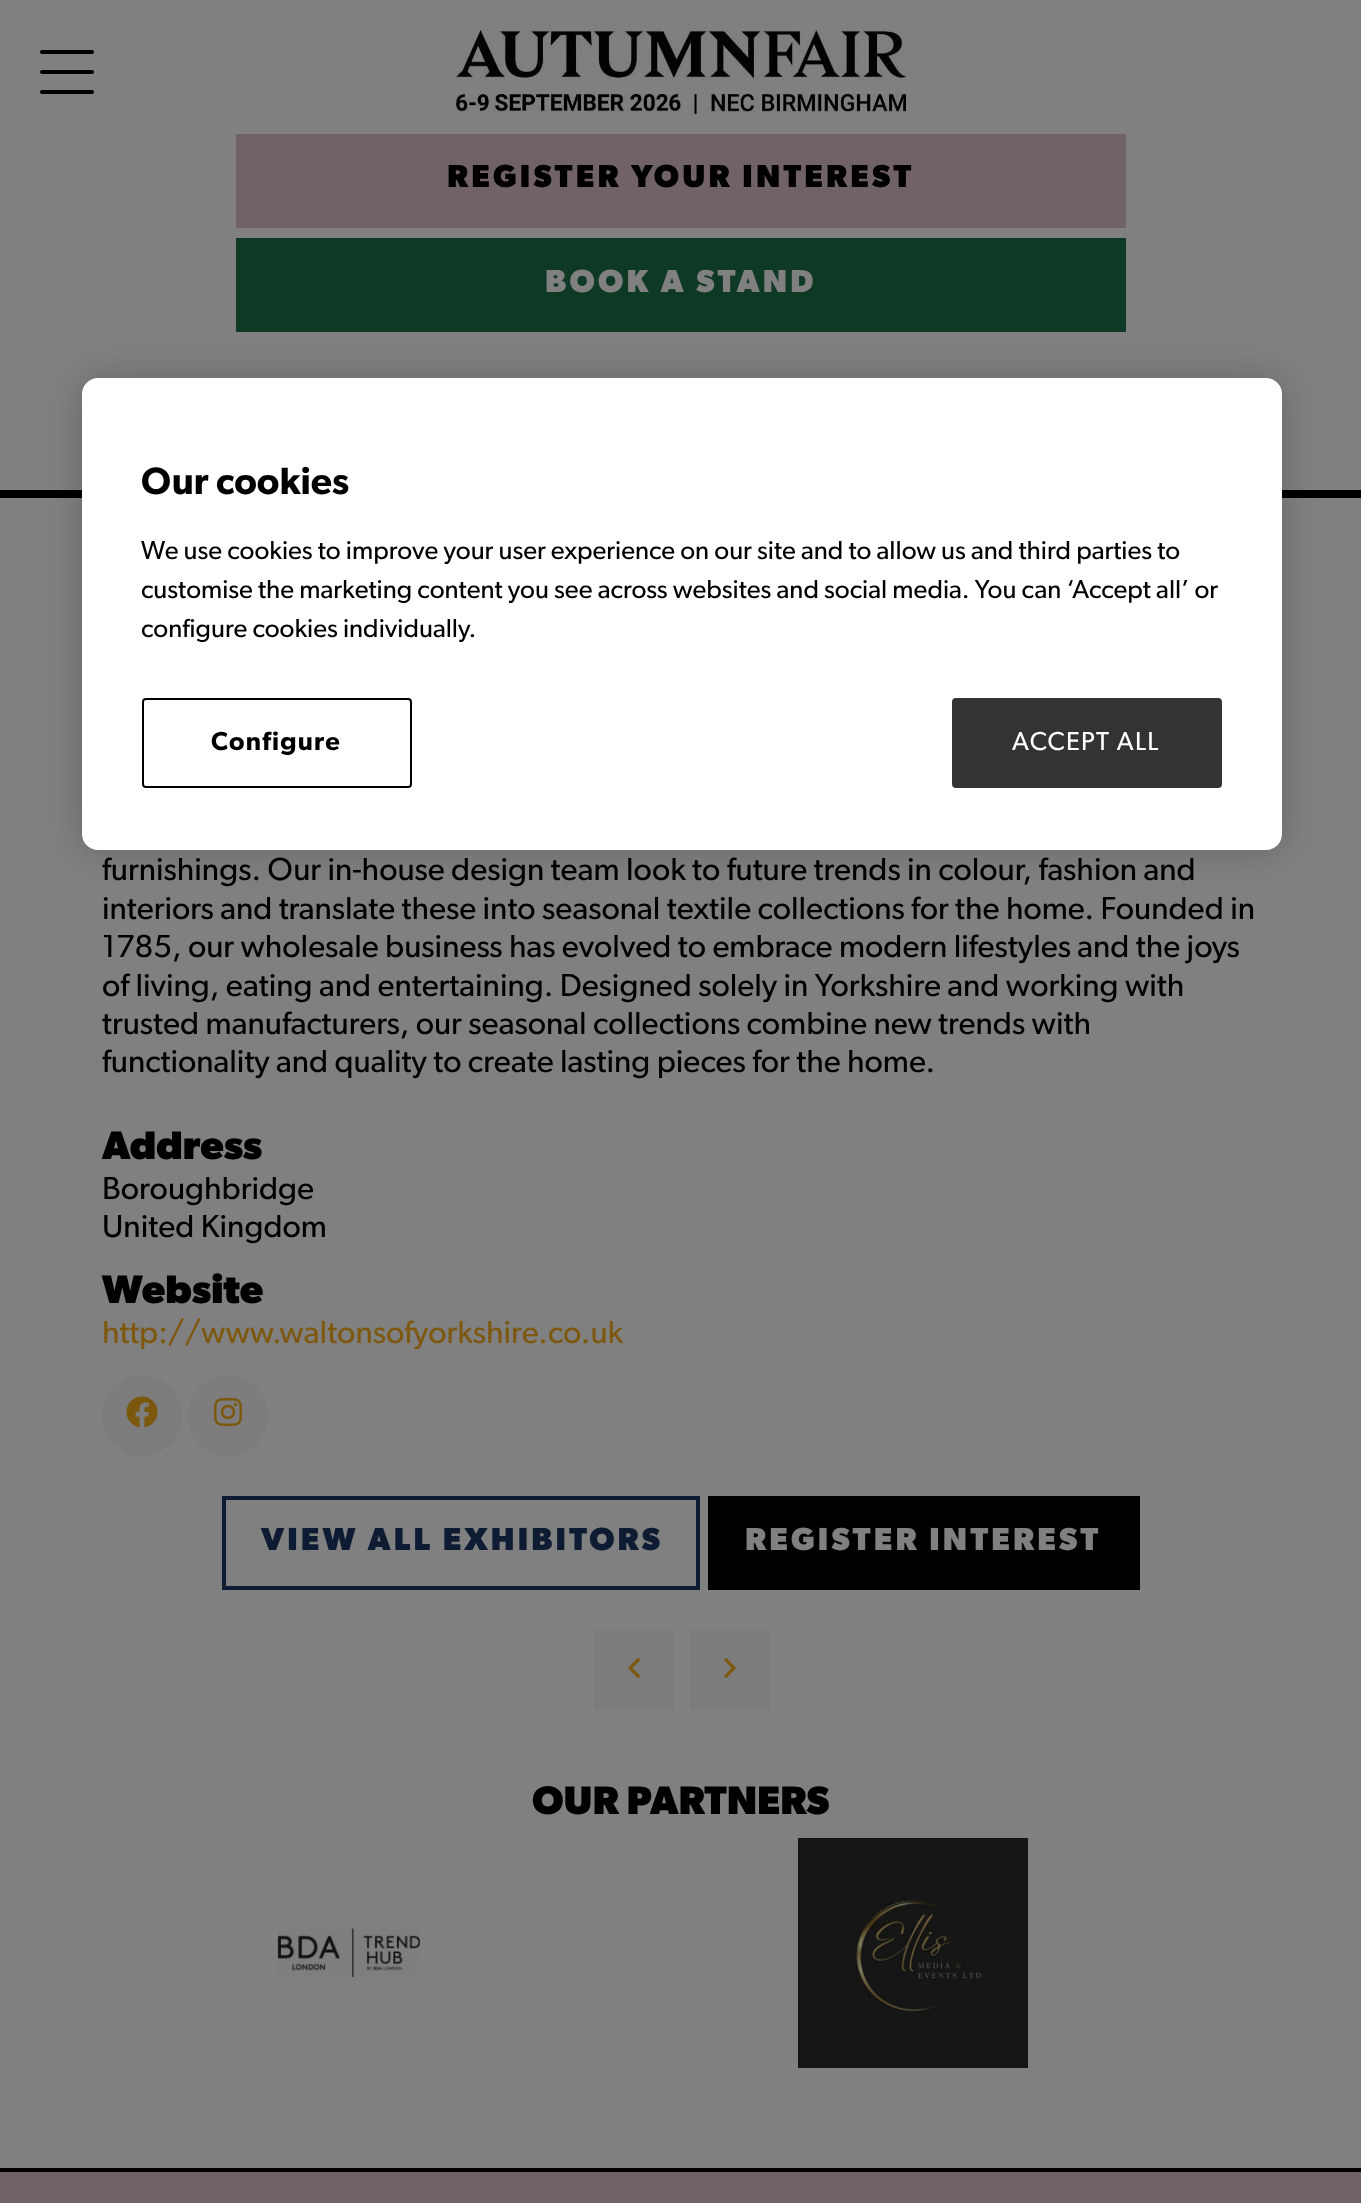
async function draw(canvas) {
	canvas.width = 1361;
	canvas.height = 2203;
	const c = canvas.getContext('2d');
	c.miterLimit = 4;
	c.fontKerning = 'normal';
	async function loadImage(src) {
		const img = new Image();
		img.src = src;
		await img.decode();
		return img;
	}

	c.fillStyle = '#808080';
	c.fillRect(0, 0, 1361, 2203);
	c.fillStyle = '#000';
	c.fillRect(0, 490, 1361, 8);
	c.beginPath();
	c.roundRect(40, 70, 54, 4, 2);
	c.fill();
	c.beginPath();
	c.roundRect(40, 50, 54, 4, 2);
	c.fill();
	c.beginPath();
	c.roundRect(40, 90, 54, 4, 2);
	c.fill();
	c.drawImage(await loadImage('img1.png'), 456, 30, 450, 84);
	c.fillStyle = '#716269';
	c.fillRect(236, 134, 890, 94);
	c.letterSpacing = '3.2px';
	c.font = 'bold 32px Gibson';
	c.fillStyle = '#000';
	c.fillText('REGISTER YOUR INTEREST', 447, 187);
	c.fillStyle = '#0e3925';
	c.fillRect(236, 238, 890, 94);
	c.fillStyle = '#808080';
	c.fillText('BOOK A STAND', 545, 292);
	c.letterSpacing = '0px';
	c.font = '32px Gibson';
	c.fillStyle = '#000';
	for (const [text, x, y] of [
		['furnishings. Our in-house design team look to future trends in colour, fashion and', 102, 880],
		['interiors and translate these into seasonal textile collections for the home. Founded in', 102, 919],
		['1785, our wholesale business has evolved to embrace modern lifestyles and the joys', 102, 957],
		['of living, eating and entertaining. Designed solely in Yorkshire and working with', 102, 996],
		['trusted manufacturers, our seasonal collections combine new trends with', 102, 1034],
		['functionality and quality to create lasting pieces for the home.', 102, 1072],
	]) {
		c.fillText(text, x, y);
	}
	c.font = 'bold 40px Gibson';
	c.fillText('Address', 102, 1159);
	c.font = '32px Gibson';
	c.fillText('Boroughbridge', 102, 1199);
	c.fillText('United Kingdom', 102, 1237);
	c.font = 'bold 40px Gibson';
	c.fillText('Website', 102, 1303);
	c.font = '32px Gibson';
	c.fillStyle = '#7d580e';
	c.fillText('http://www.waltonsofyorkshire.co.uk', 102, 1343);
	c.fillStyle = '#7c7c7c';
	c.beginPath();
	c.arc(142, 1416, 40, 0, 2 * Math.PI);
	c.fill();
	c.drawImage(await loadImage('img2.png'), 126, 1396, 32, 32);
	c.beginPath();
	c.arc(228, 1416, 40, 0, 2 * Math.PI);
	c.fill();
	c.drawImage(await loadImage('img3.png'), 214, 1398, 28, 28);
	c.strokeStyle = '#0d1c32';
	c.lineWidth = 4;
	c.strokeRect(224, 1498, 474, 90);
	c.letterSpacing = '3.2px';
	c.font = 'bold 32px Gibson';
	c.fillStyle = '#0d1c32';
	c.fillText('VIEW ALL EXHIBITORS', 261, 1550);
	c.fillStyle = '#000';
	c.fillRect(708, 1496, 432, 94);
	c.fillStyle = '#808080';
	c.fillText('REGISTER INTEREST', 745, 1550);
	c.fillStyle = '#7c7c7c';
	c.fillRect(594, 1630, 80, 80);
	c.drawImage(await loadImage('img4.png'), 628, 1658, 12, 20);
	c.fillRect(690, 1630, 80, 80);
	c.drawImage(await loadImage('img5.png'), 724, 1658, 12, 20);
	c.letterSpacing = '0px';
	c.font = 'bold 40px Gibson';
	c.fillStyle = '#000';
	c.fillText('OUR PARTNERS', 532, 1814);
	c.drawImage(await loadImage('img6.png'), 277, 1928, 143, 49);
	c.drawImage(await loadImage('img7.png'), 798, 1838, 230, 230);
	c.fillStyle = '#716269';
	c.fillRect(0, 2172, 1361, 31);
	c.fillStyle = '#000';
	c.fillRect(0, 2168, 1361, 4);
	c.fillStyle = '#00000033';
	c.filter = 'blur(18px)';
	c.beginPath();
	c.roundRect(82, 378, 1200, 472, 16);
	c.fill();
	c.filter = 'none';
	c.fillStyle = '#fff';
	c.beginPath();
	c.roundRect(82, 378, 1200, 472, 16);
	c.fill();
	c.font = '600 38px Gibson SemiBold';
	c.fillStyle = '#000';
	c.fillText('Our cookies', 141, 494);
	c.font = '26px Gibson';
	for (const [text, x, y] of [
		['We use cookies to improve your user experience on our site and to allow us and third parties to', 141, 559],
		['customise the marketing content you see across websites and social media. You can ‘Accept all’ or', 141, 598],
		['configure cookies individually.', 141, 637],
	]) {
		c.fillText(text, x, y);
	}
	c.beginPath();
	c.roundRect(143, 699, 268, 88, 3);
	c.strokeStyle = '#000';
	c.lineWidth = 2;
	c.stroke();
	c.letterSpacing = '1.25px';
	c.font = '600 26px Gibson SemiBold';
	c.fillText('Configure', 211, 750);
	c.fillStyle = '#333';
	c.beginPath();
	c.roundRect(953, 699, 268, 88, 3);
	c.fill();
	c.strokeStyle = '#333';
	c.stroke();
	c.font = '26px Gibson';
	c.fillStyle = '#fff';
	c.fillText('ACCEPT ALL', 1012, 750);
}

draw(document.querySelector('canvas'));
